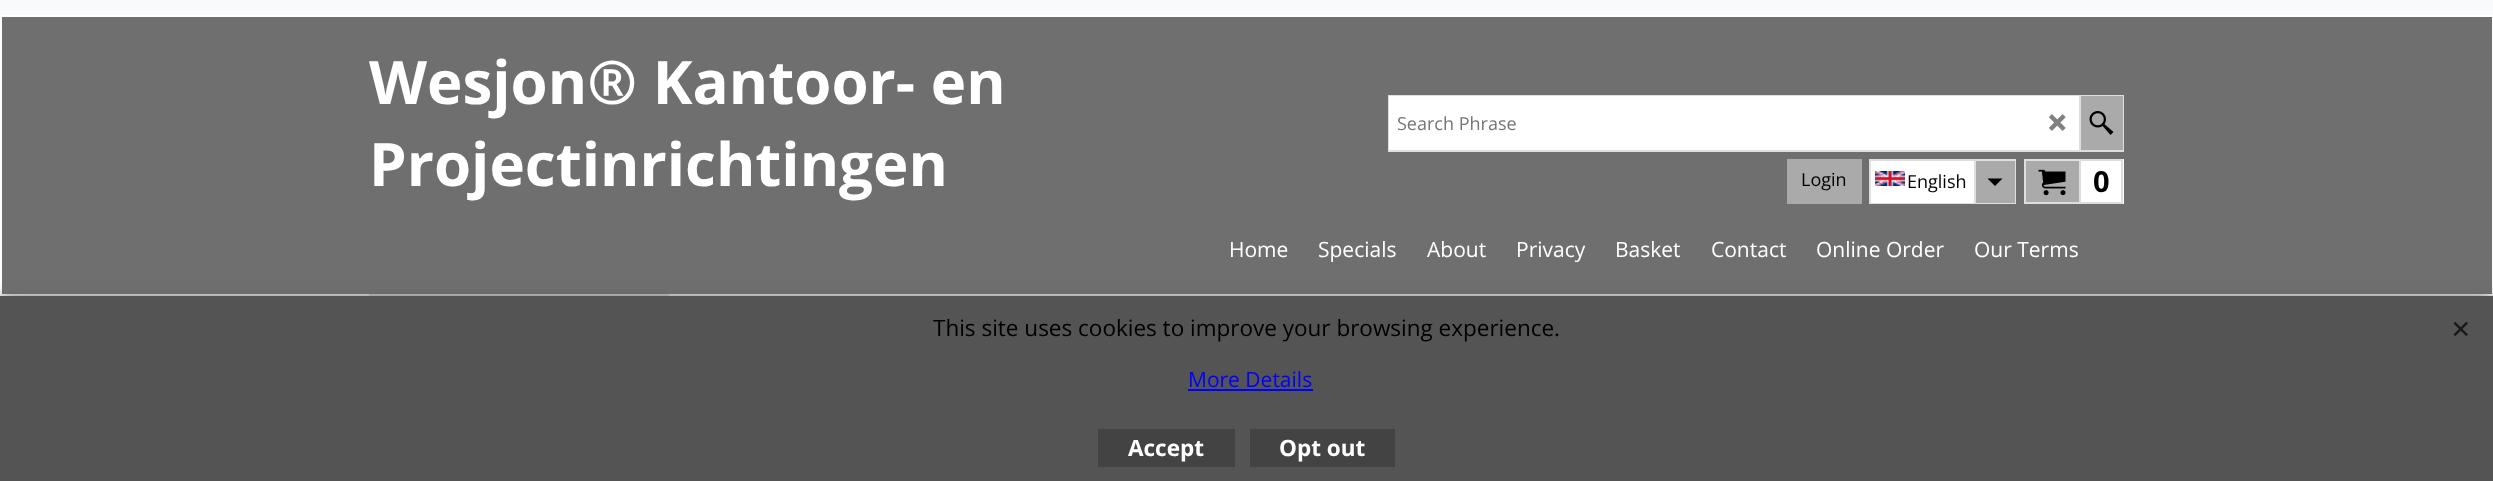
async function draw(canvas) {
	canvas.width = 2493;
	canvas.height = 481;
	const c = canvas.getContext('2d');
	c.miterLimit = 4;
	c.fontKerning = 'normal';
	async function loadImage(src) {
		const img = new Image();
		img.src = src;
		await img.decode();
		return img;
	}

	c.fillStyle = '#fff';
	c.fillRect(0, 0, 2493, 481);
	c.drawImage(await loadImage('img1.png'), 0, 0, 2493, 15);
	c.fillStyle = '#6f6f6f';
	c.fillRect(2, 17, 2490, 277);
	c.font = 'bold 60px Open Sans';
	c.fillStyle = '#fff';
	c.fillText('Wesjon® Kantoor- en', 369, 104);
	c.fillText('Projectinrichtingen', 369, 186);
	c.strokeStyle = '#dedede';
	c.lineWidth = 2;
	c.strokeRect(1389, 96, 734, 55);
	c.fillRect(1389, 96, 690, 54);
	c.font = '18px Open Sans';
	c.fillStyle = '#757575';
	c.fillText('Search Phrase', 1397, 130);
	c.drawImage(await loadImage('img2.png'), 2049, 114, 17, 17);
	c.fillStyle = '#aaa';
	c.fillRect(2081, 96, 42, 54);
	c.fillStyle = '#dedede';
	c.fillRect(2079, 96, 2, 54);
	c.drawImage(await loadImage('img3.png'), 2089, 111, 25, 24);
	c.fillStyle = '#aaa';
	c.fillRect(1787, 159, 75, 45);
	c.fillStyle = '#000';
	c.fillText('Login', 1801, 186);
	c.strokeRect(1870, 160, 145, 43);
	c.fillStyle = '#fff';
	c.fillRect(1871, 161, 103, 42);
	c.drawImage(await loadImage('img4.png'), 1875, 171, 30, 15);
	c.fillStyle = '#000';
	c.fillText('English', 1907, 188);
	c.fillStyle = '#aaa';
	c.fillRect(1976, 161, 39, 42);
	c.fillStyle = '#dedede';
	c.fillRect(1974, 161, 2, 42);
	c.fillStyle = '#000';
	c.beginPath();
	c.moveTo(1987.5, 178.5);
	c.lineTo(1995, 186);
	c.lineTo(2002.5, 178.5);
	c.closePath();
	c.fill();
	c.fillStyle = '#fff';
	c.fillRect(2081, 159, 43, 45);
	c.fillStyle = '#aaa';
	c.beginPath();
	c.rect(2025, 160, 55, 43);
	c.fill();
	c.stroke();
	c.drawImage(await loadImage('img5.png'), 2038, 169, 28, 27);
	c.strokeRect(2080, 160, 42, 43);
	c.font = 'bold 29px Open Sans';
	c.fillStyle = '#000';
	c.fillText('0', 2093, 192);
	c.font = '21px Open Sans';
	c.fillStyle = '#fff';
	for (const [text, x, y] of [
		['Home', 1229, 257],
		['Specials', 1318, 257],
		['About', 1427, 257],
		['Privacy', 1516, 257],
		['Basket', 1615, 257],
		['Contact', 1711, 257],
		['Online Order', 1816, 257],
		['Our Terms', 1974, 257],
	]) {
		c.fillText(text, x, y);
	}
	c.fillStyle = '#dcdcdc';
	c.fillRect(369, 294, 300, 2);
	c.fillStyle = '#666';
	c.filter = 'blur(7.5px)';
	c.beginPath();
	c.rect(0, 296, 2493, 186);
	c.fill();
	c.filter = 'none';
	c.fillStyle = '#545454';
	c.fillRect(0, 296, 2493, 185);
	c.font = '22.5px Open Sans';
	c.fillStyle = '#000';
	c.fillText('This site uses cookies to improve your browsing experience.', 933, 336);
	c.font = '21px Open Sans';
	c.fillStyle = '#00f';
	c.fillText('More Details', 1188, 387);
	c.fillRect(1188, 389, 125, 2);
	c.drawImage(await loadImage('img6.png'), 2453, 321, 15, 15);
	c.fillStyle = '#434343';
	c.fillRect(1098, 429, 137, 38);
	c.font = 'bold 22.5px Open Sans';
	c.fillStyle = '#fff';
	c.fillText('Accept', 1128, 456);
	c.fillStyle = '#434343';
	c.fillRect(1250, 429, 145, 38);
	c.fillStyle = '#fff';
	c.fillText('Opt out', 1279, 456);
}

draw(document.querySelector('canvas'));
